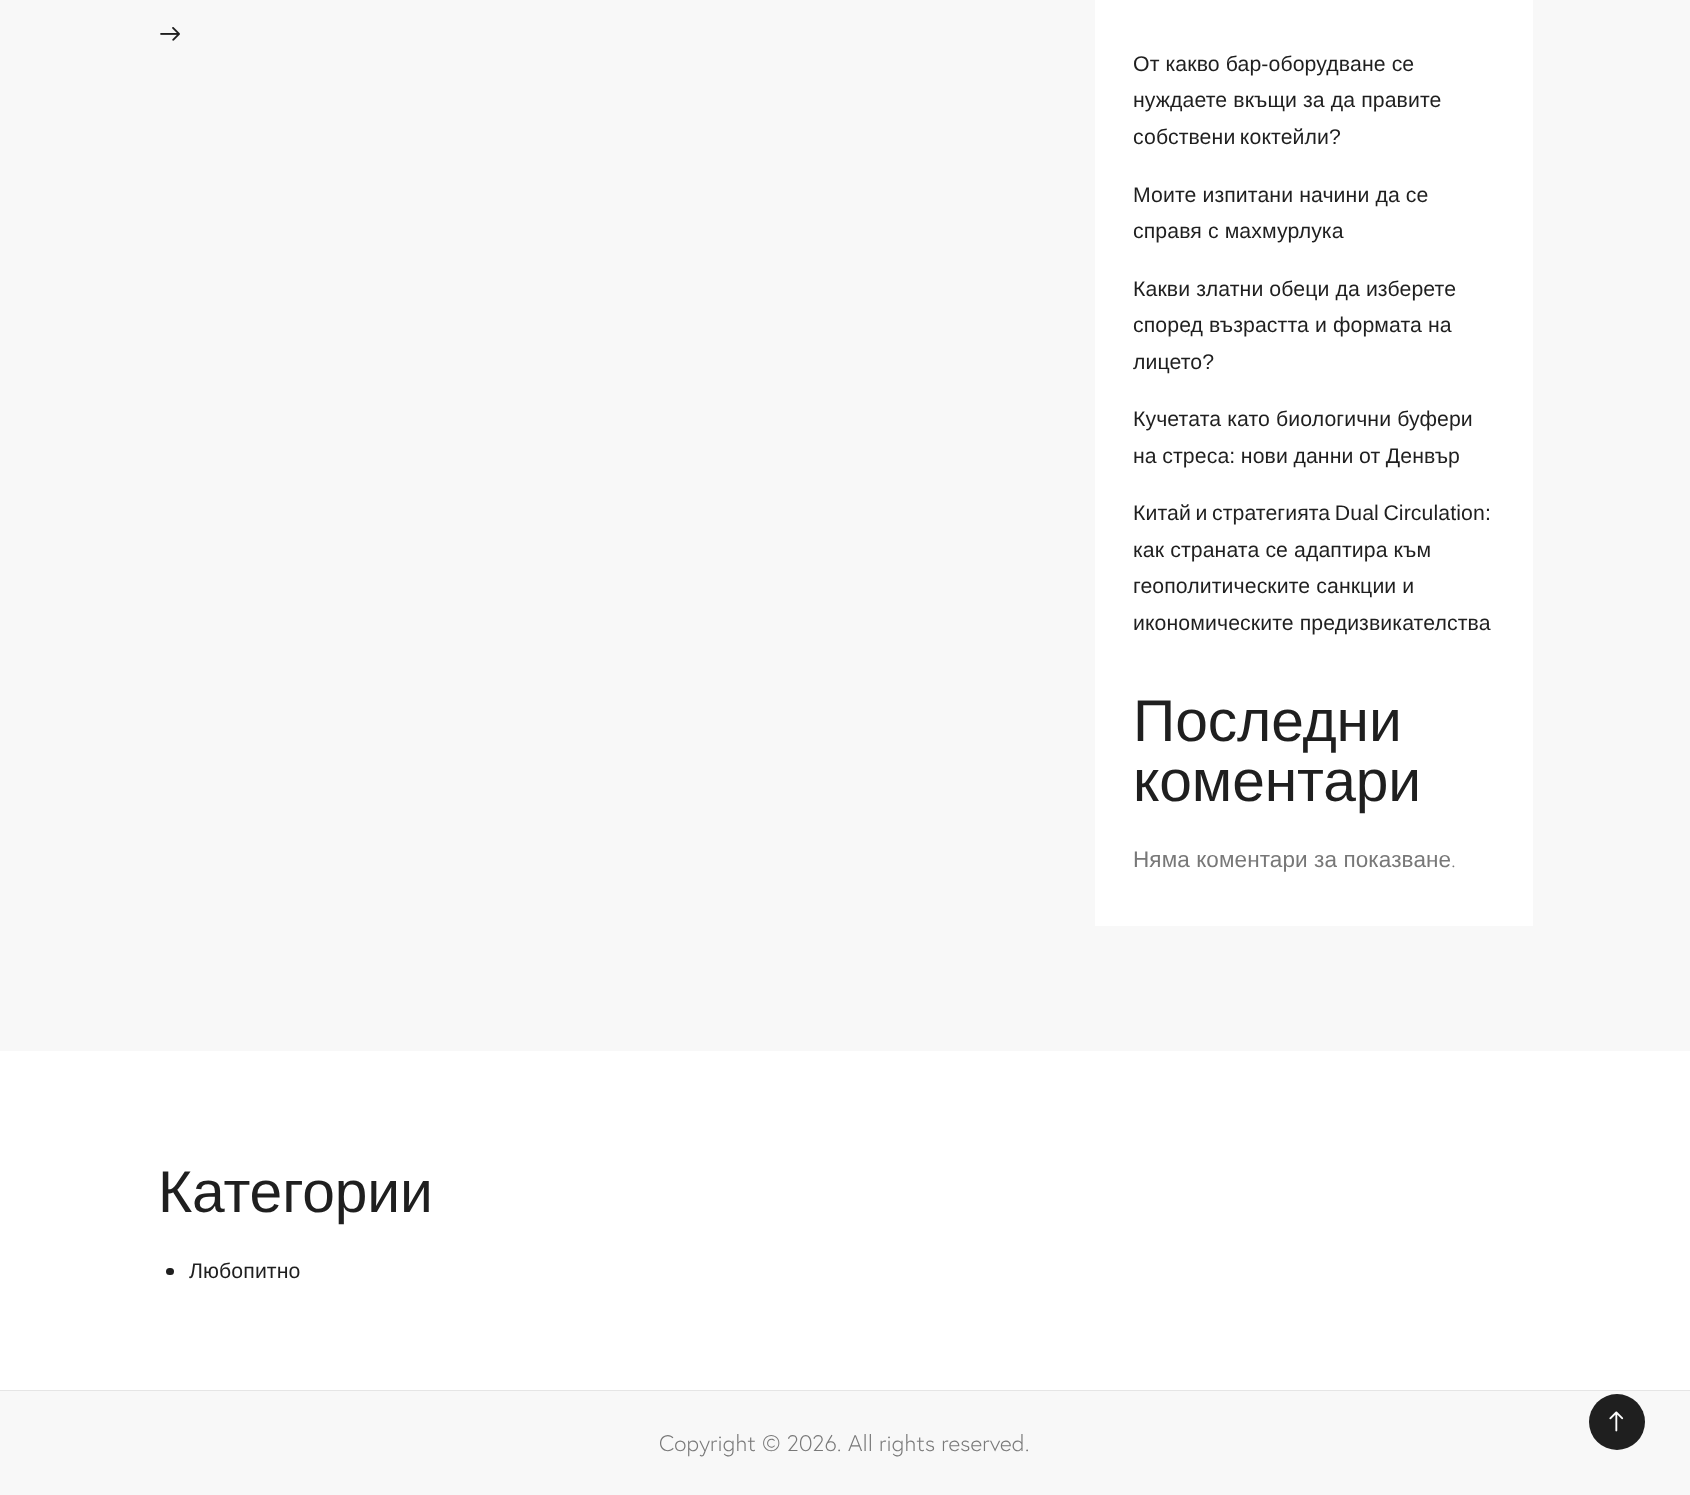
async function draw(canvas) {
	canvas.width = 1690;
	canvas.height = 1495;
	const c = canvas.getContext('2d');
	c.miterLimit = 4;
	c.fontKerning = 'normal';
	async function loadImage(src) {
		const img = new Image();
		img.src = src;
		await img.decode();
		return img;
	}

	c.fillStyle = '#f8f8f8';
	c.fillRect(0, 0, 1690, 1495);
	c.drawImage(await loadImage('img1.png'), 160, 27, 20, 14);
	c.fillStyle = '#fff';
	c.fillRect(1095, 0, 438, 926);
	c.letterSpacing = '0.1px';
	c.font = '21.25px Liberation Sans';
	c.fillStyle = '#1f1f1f';
	c.fillText('От какво бар-оборудване се', 1133, 71);
	c.fillText('нуждаете вкъщи за да правите', 1133, 107);
	c.wordSpacing = '-1.5px';
	c.fillText('собствени коктейли?', 1133, 144);
	c.wordSpacing = '0px';
	for (const [text, x, y] of [
		['Моите изпитани начини да се', 1133, 202],
		['справя с махмурлука', 1133, 238],
		['Какви златни обеци да изберете', 1133, 296],
		['според възрастта и формата на', 1133, 332],
		['лицето?', 1133, 369],
		['Кучетата като биологични буфери', 1133, 426],
	]) {
		c.fillText(text, x, y);
	}
	c.wordSpacing = '-0.5px';
	c.fillText('на стреса: нови данни от Денвър', 1133, 463);
	c.wordSpacing = '-1.5px';
	c.fillText('Китай и стратегията Dual Circulation:', 1133, 520);
	c.wordSpacing = '0px';
	for (const [text, x, y] of [
		['как страната се адаптира към', 1133, 557],
		['геополитическите санкции и', 1133, 593],
		['икономическите предизвикателства', 1133, 630],
	]) {
		c.fillText(text, x, y);
	}
	c.letterSpacing = '-0.1px';
	c.font = '58.75px Liberation Sans';
	c.fillText('Последни', 1133, 741);
	c.fillText('коментари', 1133, 801);
	c.letterSpacing = '0.1px';
	c.font = '22.5px Liberation Sans';
	c.fillStyle = '#787878';
	c.fillText('Няма коментари за показване', 1133, 867);
	c.font = '300 22.5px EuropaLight';
	c.fillText('.', 1451, 867);
	c.fillStyle = '#fff';
	c.fillRect(0, 1051, 1690, 339);
	c.letterSpacing = '-0.1px';
	c.font = '58.75px Liberation Sans';
	c.fillStyle = '#1f1f1f';
	c.fillText('Категории', 158, 1212);
	c.beginPath();
	c.roundRect(166, 1268, 8, 7, 3.5);
	c.fill();
	c.letterSpacing = '0.1px';
	c.font = '21.25px Liberation Sans';
	c.fillText('Любопитно', 189, 1278);
	c.fillStyle = '#e5e5e5';
	c.fillRect(0, 1390, 1690, 1);
	c.font = '300 22.5px EuropaLight';
	c.fillStyle = '#787878';
	c.fillText('Copyright © 2026. All rights reserved.', 659, 1451);
	c.fillStyle = '#1f1f1f';
	c.beginPath();
	c.arc(1617, 1422, 28, 0, 2 * Math.PI);
	c.fill();
	c.drawImage(await loadImage('img2.png'), 1609, 1411, 15, 21);
}

draw(document.querySelector('canvas'));
